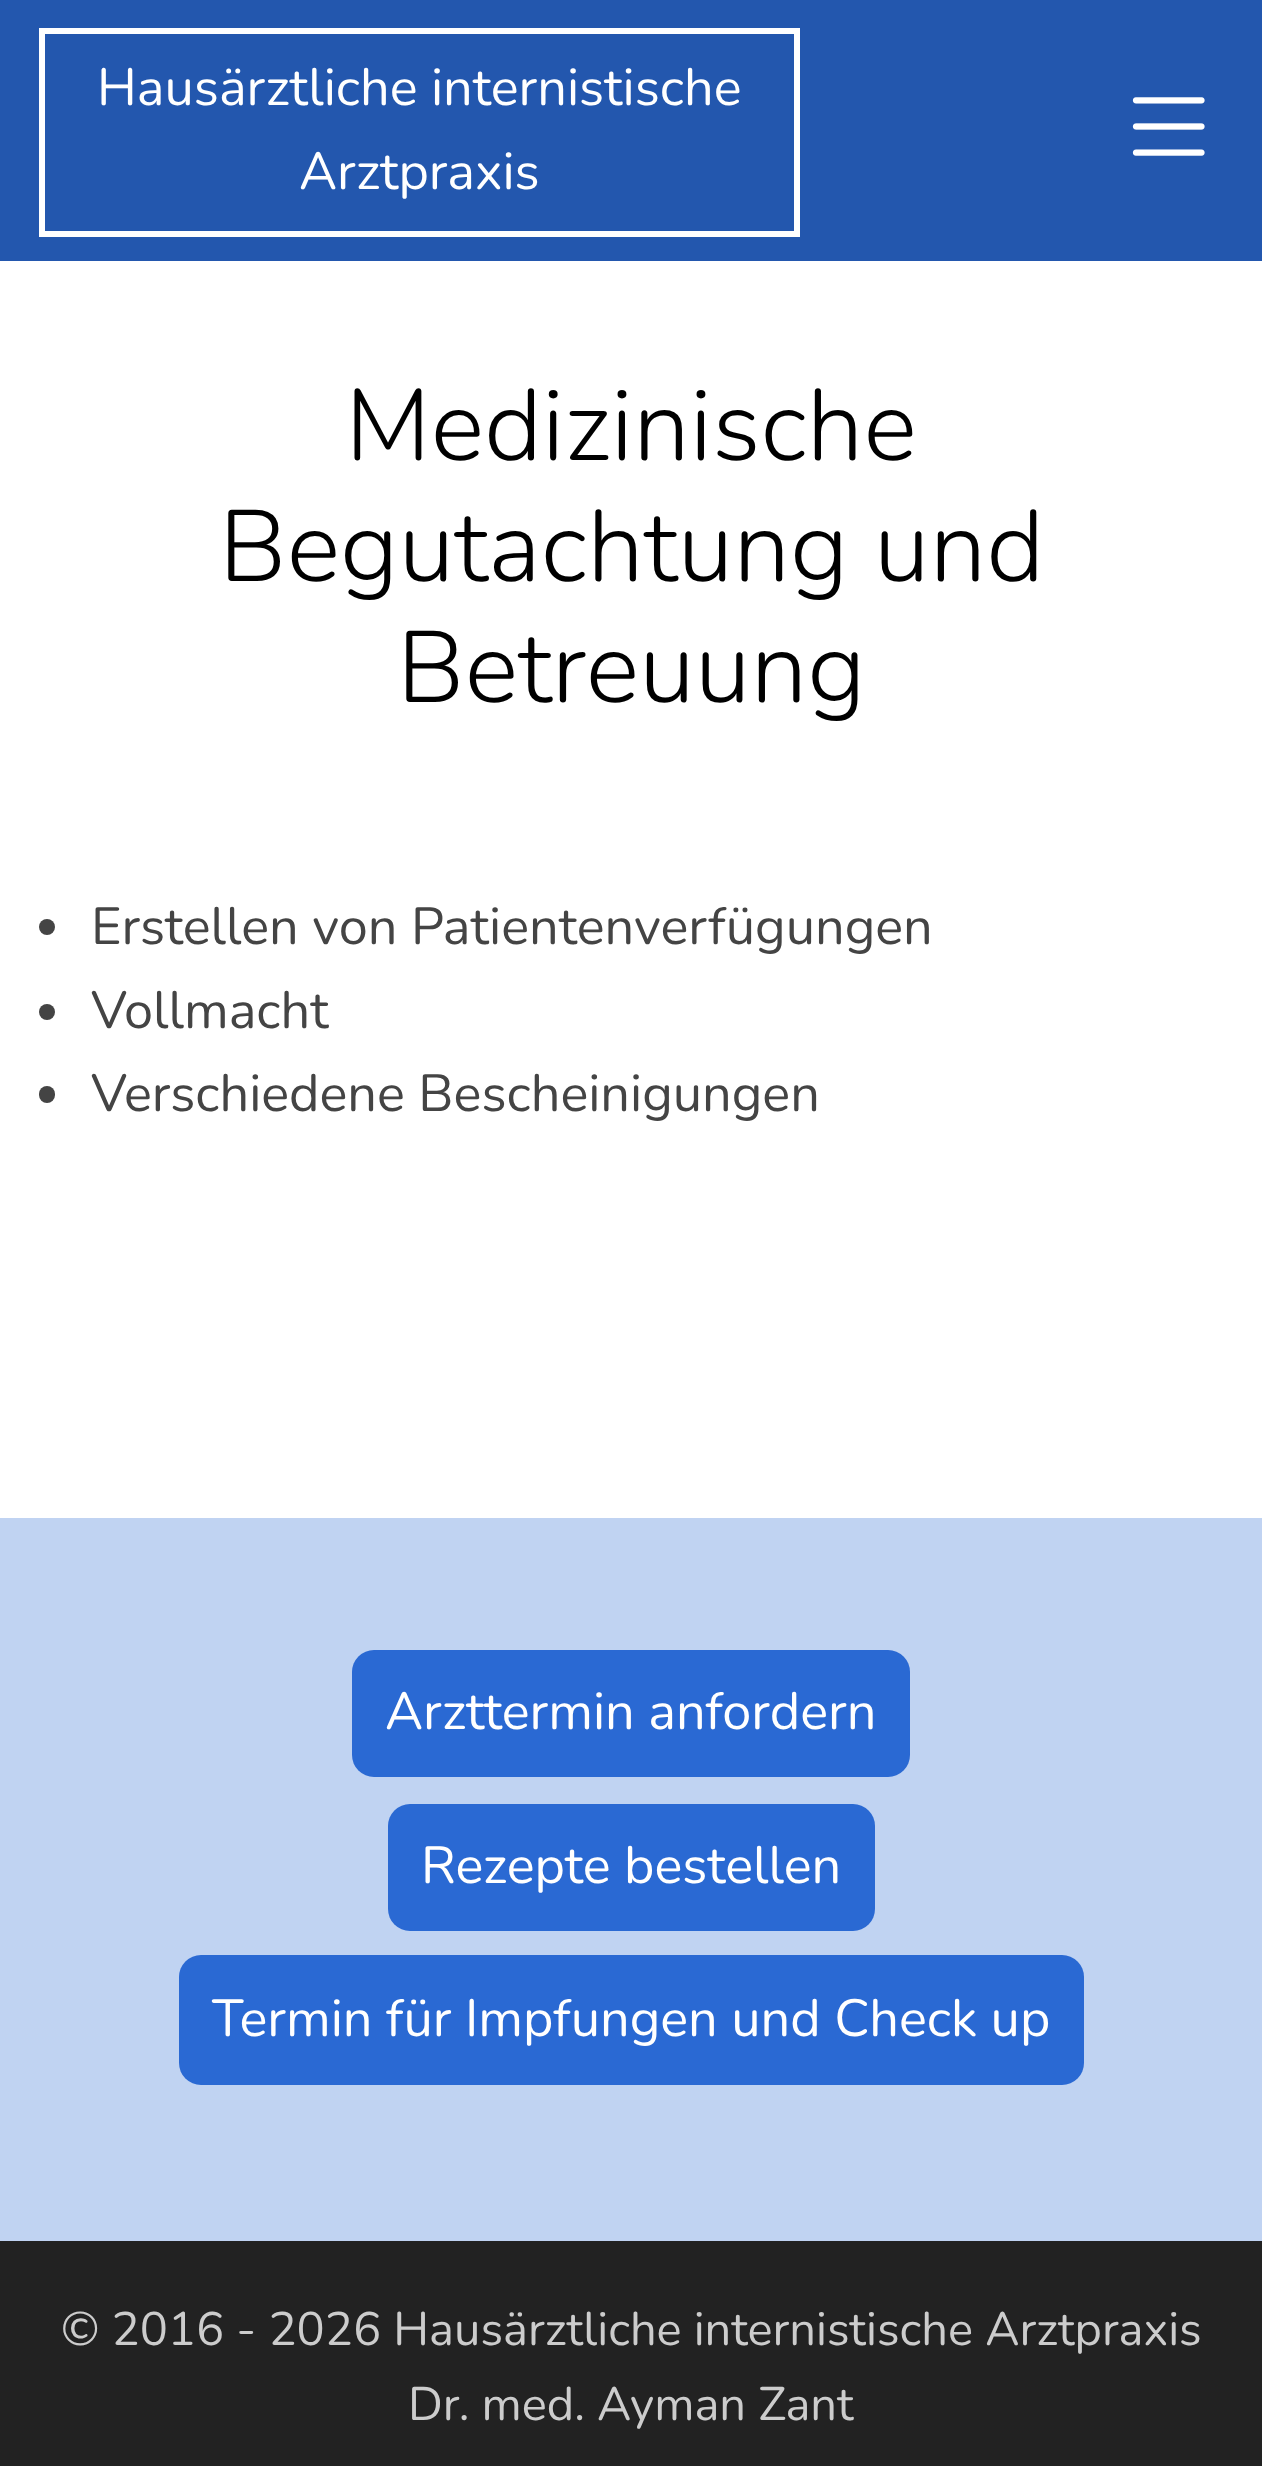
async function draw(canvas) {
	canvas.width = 1262;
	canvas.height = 2466;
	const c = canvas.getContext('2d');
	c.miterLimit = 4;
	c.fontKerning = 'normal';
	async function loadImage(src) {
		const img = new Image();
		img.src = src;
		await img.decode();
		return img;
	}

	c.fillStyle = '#fff';
	c.fillRect(0, 0, 1262, 2466);
	c.fillStyle = '#2357ae';
	c.fillRect(0, 0, 1262, 261);
	c.strokeStyle = '#fff';
	c.lineWidth = 6;
	c.strokeRect(42, 31, 755, 203);
	c.font = '52.25px Nunito';
	c.fillStyle = '#fff';
	c.fillText('Hausärztliche internistische', 97, 105);
	c.fillText('Arztpraxis', 299, 189);
	c.drawImage(await loadImage('img1.png'), 1132, 97, 73, 59);
	c.font = '300 101px Nunito';
	c.fillStyle = '#000';
	for (const [text, x, y] of [
		['Medizinische', 345, 460],
		['Begutachtung und', 219, 581],
		['Betreuung', 397, 702],
	]) {
		c.fillText(text, x, y);
	}
	c.fillStyle = '#444';
	c.beginPath();
	c.arc(47, 927, 8, 0, 2 * Math.PI);
	c.fill();
	c.font = '52.25px Nunito';
	c.fillText('Erstellen von Patientenverfügungen', 91, 944);
	c.beginPath();
	c.arc(47, 1012, 8, 0, 2 * Math.PI);
	c.fill();
	c.fillText('Vollmacht', 91, 1028);
	c.beginPath();
	c.roundRect(39, 1086, 16, 17, 8);
	c.fill();
	c.fillText('Verschiedene Bescheinigungen', 91, 1111);
	c.fillStyle = '#c0d3f2';
	c.fillRect(0, 1518, 1262, 723);
	c.fillStyle = '#2a69d3';
	c.beginPath();
	c.roundRect(352, 1650, 558, 127, 22);
	c.fill();
	c.fillStyle = '#fff';
	c.fillText('Arzttermin anfordern', 385, 1729);
	c.fillStyle = '#2a69d3';
	c.beginPath();
	c.roundRect(388, 1804, 487, 127, 22);
	c.fill();
	c.fillStyle = '#fff';
	c.fillText('Rezepte bestellen', 421, 1883);
	c.fillStyle = '#2a69d3';
	c.beginPath();
	c.roundRect(179, 1955, 905, 130, 22);
	c.fill();
	c.fillStyle = '#fff';
	c.fillText('Termin für Impfungen und Check up', 212, 2036);
	c.fillStyle = '#222';
	c.fillRect(0, 2241, 1262, 225);
	c.font = '47px Nunito';
	c.fillStyle = '#ccc';
	c.fillText('© 2016 - 2026 Hausärztliche internistische Arztpraxis', 61, 2345);
	c.fillText('Dr. med. Ayman Zant', 408, 2420);
}

draw(document.querySelector('canvas'));
